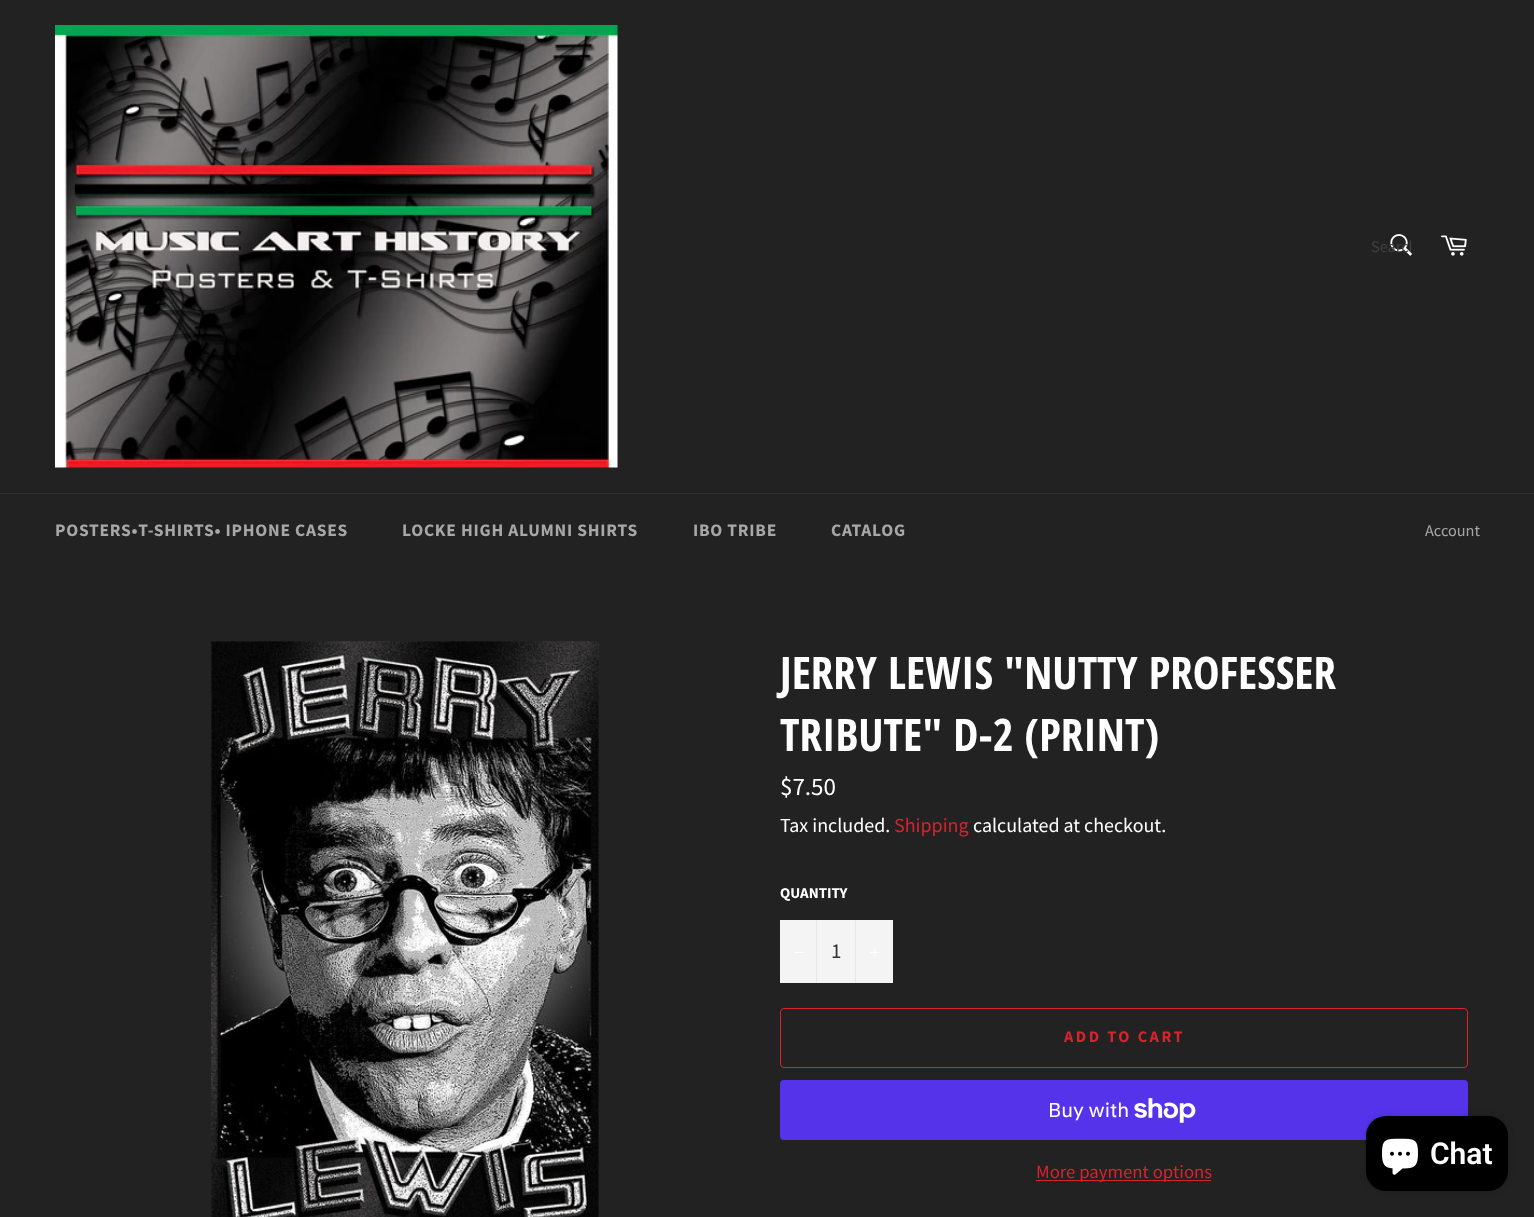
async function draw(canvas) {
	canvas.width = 1534;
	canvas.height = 1217;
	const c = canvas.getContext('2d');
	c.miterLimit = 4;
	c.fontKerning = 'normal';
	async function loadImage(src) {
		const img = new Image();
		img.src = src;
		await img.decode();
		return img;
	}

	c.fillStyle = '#222';
	c.fillRect(0, 0, 1534, 1217);
	c.drawImage(await loadImage('img1.png'), 55, 25, 563, 443);
	c.drawImage(await loadImage('img2.png'), 1390, 234, 22, 22);
	c.save();
	c.beginPath();
	c.rect(1371, 236, 40, 22);
	c.clip();
	c.font = '16.25px Source Sans Pro';
	c.fillStyle = '#414141';
	c.fillText('Search', 1371, 252);
	c.restore();
	c.drawImage(await loadImage('img3.png'), 1441, 235, 26, 21);
	c.fillStyle = '#2f2f2f';
	c.fillRect(0, 493, 1534, 1);
	c.letterSpacing = '0.75px';
	c.font = 'bold 17.5px Source Sans Pro';
	c.fillStyle = '#a7a7a7';
	for (const [text, x, y] of [
		['POSTERS•T-SHIRTS• IPHONE CASES', 55, 536],
		['LOCKE HIGH ALUMNI SHIRTS', 402, 536],
		['IBO TRIBE', 693, 536],
		['CATALOG', 831, 536],
	]) {
		c.fillText(text, x, y);
	}
	c.letterSpacing = '0px';
	c.font = '16.25px Source Sans Pro';
	c.fillText('Account', 1425, 536);
	c.drawImage(await loadImage('img4.png'), 211, 641, 388, 576);
	c.font = 'bold 45px Open Sans Condensed';
	c.fillStyle = '#fff';
	c.fillText('JERRY LEWIS "NUTTY PROFESSER', 780, 689);
	c.fillText('TRIBUTE" D-2 (PRINT)', 780, 751);
	c.font = '25px Source Sans Pro';
	c.fillText('$7.50', 780, 795);
	c.font = '20px Source Sans Pro';
	c.fillText('Tax included.', 780, 832);
	c.fillStyle = '#d8232f';
	c.fillText('Shipping', 894, 832);
	c.fillStyle = '#fff';
	c.fillText('calculated at checkout.', 973, 832);
	c.font = 'bold 15px Source Sans Pro';
	c.fillText('QUANTITY', 780, 898);
	for (const [x, y, w, h, color] of [
		[780, 920, 113, 63, '#f4f4f4'],
		[816, 920, 1, 63, '#e7e7e7'],
		[794, 952, 10, 1, '#fff'],
	]) {
		c.fillStyle = color;
		c.fillRect(x, y, w, h);
	}
	c.font = '21px Source Sans Pro';
	c.fillStyle = '#333';
	c.fillText('1', 831, 958);
	c.fillStyle = '#e7e7e7';
	c.fillRect(855, 920, 1, 63);
	c.drawImage(await loadImage('img5.png'), 870, 948, 10, 9);
	c.beginPath();
	c.roundRect(780.5, 1008.5, 687, 59, 3.5);
	c.strokeStyle = '#d8232f';
	c.stroke();
	c.letterSpacing = '2.5px';
	c.font = 'bold 16.25px Source Sans Pro';
	c.fillStyle = '#d8232f';
	c.fillText('ADD TO CART', 1064, 1042);
	c.fillStyle = '#5433eb';
	c.beginPath();
	c.roundRect(780, 1080, 688, 60, 4);
	c.fill();
	c.letterSpacing = '0px';
	c.font = '20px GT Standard';
	c.fillStyle = '#fff';
	c.fillText('Buy with', 1048, 1117);
	c.drawImage(await loadImage('img6.png'), 1134, 1098, 62, 25);
	c.fillStyle = '#d8232f';
	c.fillRect(1036, 1180, 175, 1);
	c.font = '18.75px Source Sans Pro';
	c.fillText('More payment options', 1036, 1178);
	c.fillStyle = '#00000026';
	c.filter = 'blur(3px)';
	c.beginPath();
	c.roundRect(1366, 1116, 142, 75, 20);
	c.fill();
	c.filter = 'none';
	c.fillStyle = '#000';
	c.beginPath();
	c.roundRect(1366, 1116, 142, 75, 20);
	c.fill();
	c.drawImage(await loadImage('img7.png'), 1382, 1138, 36, 37);
	c.font = '600 30px Roboto';
	c.fillStyle = '#fff';
	c.fillText('Chat', 1430, 1164);
}

draw(document.querySelector('canvas'));
